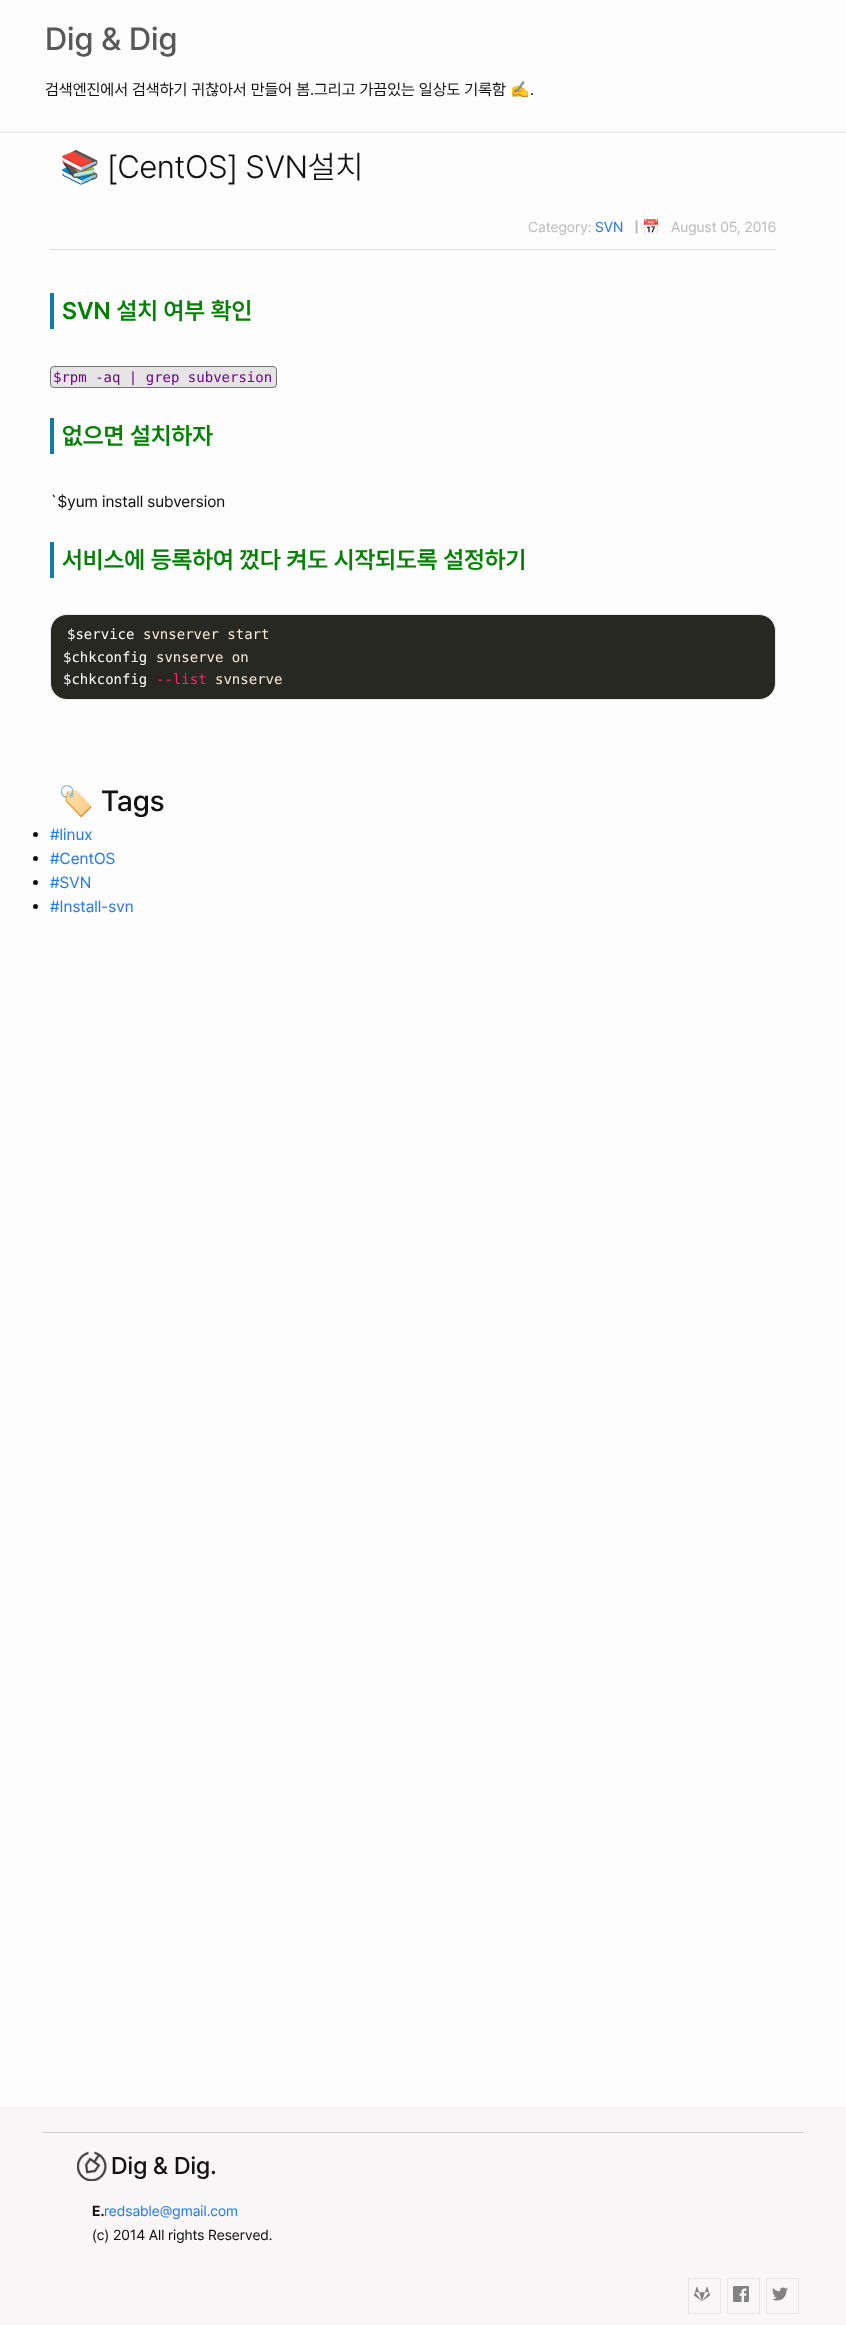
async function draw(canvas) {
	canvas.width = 846;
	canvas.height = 2325;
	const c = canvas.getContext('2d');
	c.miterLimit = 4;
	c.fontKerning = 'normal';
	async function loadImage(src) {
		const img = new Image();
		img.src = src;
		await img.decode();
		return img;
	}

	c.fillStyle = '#fdfdfd';
	c.fillRect(0, 0, 846, 2325);
	c.fillStyle = '#e6e6e6';
	c.fillRect(0, 132, 846, 1);
	c.font = '500 32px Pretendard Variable';
	c.fillStyle = '#585858';
	c.fillText('Dig & Dig', 45, 50);
	c.font = '16px Pretendard Variable';
	c.fillStyle = '#111';
	c.fillText('검색엔진에서 검색하기 귀찮아서 만들어 봄.그리고 가끔있는 일상도 기록함', 45, 95);
	c.font = '16px Noto Color Emoji';
	c.fillText('✍️', 510, 95);
	c.font = '16px Pretendard Variable';
	c.fillText('.', 530, 95);
	c.font = '32px Noto Color Emoji';
	c.fillText('📚', 60, 178);
	c.font = '300 32px Pretendard Variable';
	c.fillText('[CentOS] SVN설치', 107, 178);
	c.fillStyle = '#dbdbdb';
	c.fillRect(50, 249, 726, 1);
	c.font = '14.4px Pretendard Variable';
	c.fillStyle = '#bbb';
	c.fillText('Category:', 528, 232);
	c.fillStyle = '#2a7ae2';
	c.fillText('SVN', 595, 232);
	c.font = 'bold 14.4px Pretendard Variable';
	c.fillStyle = '#bbb';
	c.fillText('|', 634, 232);
	c.font = 'bold 14.4px Noto Color Emoji';
	c.fillText('📅', 642, 232);
	c.font = '14.4px Pretendard Variable';
	c.fillText('August 05, 2016', 671, 232);
	c.fillStyle = '#147ba7';
	c.fillRect(50, 293, 4, 36);
	c.font = '600 24px Pretendard Variable';
	c.fillStyle = '#008000';
	c.fillText('SVN 설치 여부 확인', 62, 319);
	c.fillStyle = '#e6e4e4';
	c.beginPath();
	c.roundRect(50.5, 366.5, 226, 21, 3.5);
	c.fill();
	c.strokeStyle = '#727272';
	c.stroke();
	c.font = '14px DejaVu Sans Mono';
	c.fillStyle = '#6a0888';
	c.fillText('$rpm -aq | grep subversion', 53, 382);
	c.fillStyle = '#147ba7';
	c.fillRect(50, 418, 4, 36);
	c.font = '600 24px Pretendard Variable';
	c.fillStyle = '#008000';
	c.fillText('없으면 설치하자', 62, 444);
	c.font = '16px Pretendard Variable';
	c.fillStyle = '#111';
	c.fillText('`$yum install subversion', 50, 507);
	c.fillStyle = '#147ba7';
	c.fillRect(50, 542, 4, 36);
	c.font = '600 24px Pretendard Variable';
	c.fillStyle = '#008000';
	c.fillText('서비스에 등록하여 껐다 켜도 시작되도록 설정하기', 62, 568);
	c.fillStyle = '#272822';
	c.beginPath();
	c.roundRect(50.5, 614.5, 725, 85, 16.5);
	c.fill();
	c.strokeStyle = '#e8e8e8';
	c.stroke();
	c.font = '14px DejaVu Sans Mono';
	c.fillStyle = '#fff';
	c.fillText('$service', 67, 639);
	c.fillStyle = '#faebd7';
	c.fillText('svnserver start', 143, 639);
	c.fillStyle = '#fff';
	c.fillText('$chkconfig', 63, 662);
	c.fillStyle = '#faebd7';
	c.fillText('svnserve on', 156, 662);
	c.fillStyle = '#fff';
	c.fillText('$chkconfig', 63, 684);
	c.fillStyle = '#f92672';
	c.fillText('--list', 156, 684);
	c.fillStyle = '#faebd7';
	c.fillText('svnserve', 215, 684);
	c.font = '29px Noto Color Emoji';
	c.fillStyle = '#111';
	c.fillText('🏷️', 58, 811);
	c.font = '500 29px Pretendard Variable';
	c.fillText('Tags', 101, 811);
	c.beginPath();
	c.arc(35.5, 834.5, 2.5, 0, 2 * Math.PI);
	c.fill();
	c.font = '16px Pretendard Variable';
	c.fillStyle = '#2a7ae2';
	c.fillText('#linux', 50, 840);
	c.fillStyle = '#111';
	c.beginPath();
	c.arc(35.5, 858.5, 2.5, 0, 2 * Math.PI);
	c.fill();
	c.fillStyle = '#2a7ae2';
	c.fillText('#CentOS', 50, 864);
	c.fillStyle = '#111';
	c.beginPath();
	c.arc(35.5, 882.5, 2.5, 0, 2 * Math.PI);
	c.fill();
	c.fillStyle = '#2a7ae2';
	c.fillText('#SVN', 50, 888);
	c.fillStyle = '#111';
	c.beginPath();
	c.arc(35.5, 906.5, 2.5, 0, 2 * Math.PI);
	c.fill();
	c.fillStyle = '#2a7ae2';
	c.fillText('#Install-svn', 50, 912);
	c.fillStyle = '#f8f6f6';
	c.fillRect(0, 2107, 846, 218);
	c.fillStyle = '#ccc';
	c.fillRect(42, 2132, 762, 1);
	c.drawImage(await loadImage('img1.png'), 77, 2151, 30, 30);
	c.font = '500 24px Pretendard Variable';
	c.fillStyle = '#111';
	c.fillText('Dig & Dig.', 111, 2174);
	c.font = 'bold 14.4px Pretendard Variable';
	c.fillText('E.', 92, 2216);
	c.font = '14.4px Pretendard Variable';
	c.fillStyle = '#2a7ae2';
	c.fillText('redsable@gmail.com', 104, 2216);
	c.fillStyle = '#111';
	c.fillText('(c) 2014 All rights Reserved.', 92, 2240);
	c.strokeStyle = '#e6e6e6';
	c.strokeRect(688.5, 2278.5, 32, 35);
	c.drawImage(await loadImage('img2.png'), 694, 2286, 16, 15);
	c.strokeRect(727.5, 2278.5, 32, 35);
	c.drawImage(await loadImage('img3.png'), 733, 2286, 16, 16);
	c.strokeRect(766.5, 2278.5, 32, 35);
	c.drawImage(await loadImage('img4.png'), 772, 2287, 16, 14);
}

draw(document.querySelector('canvas'));
